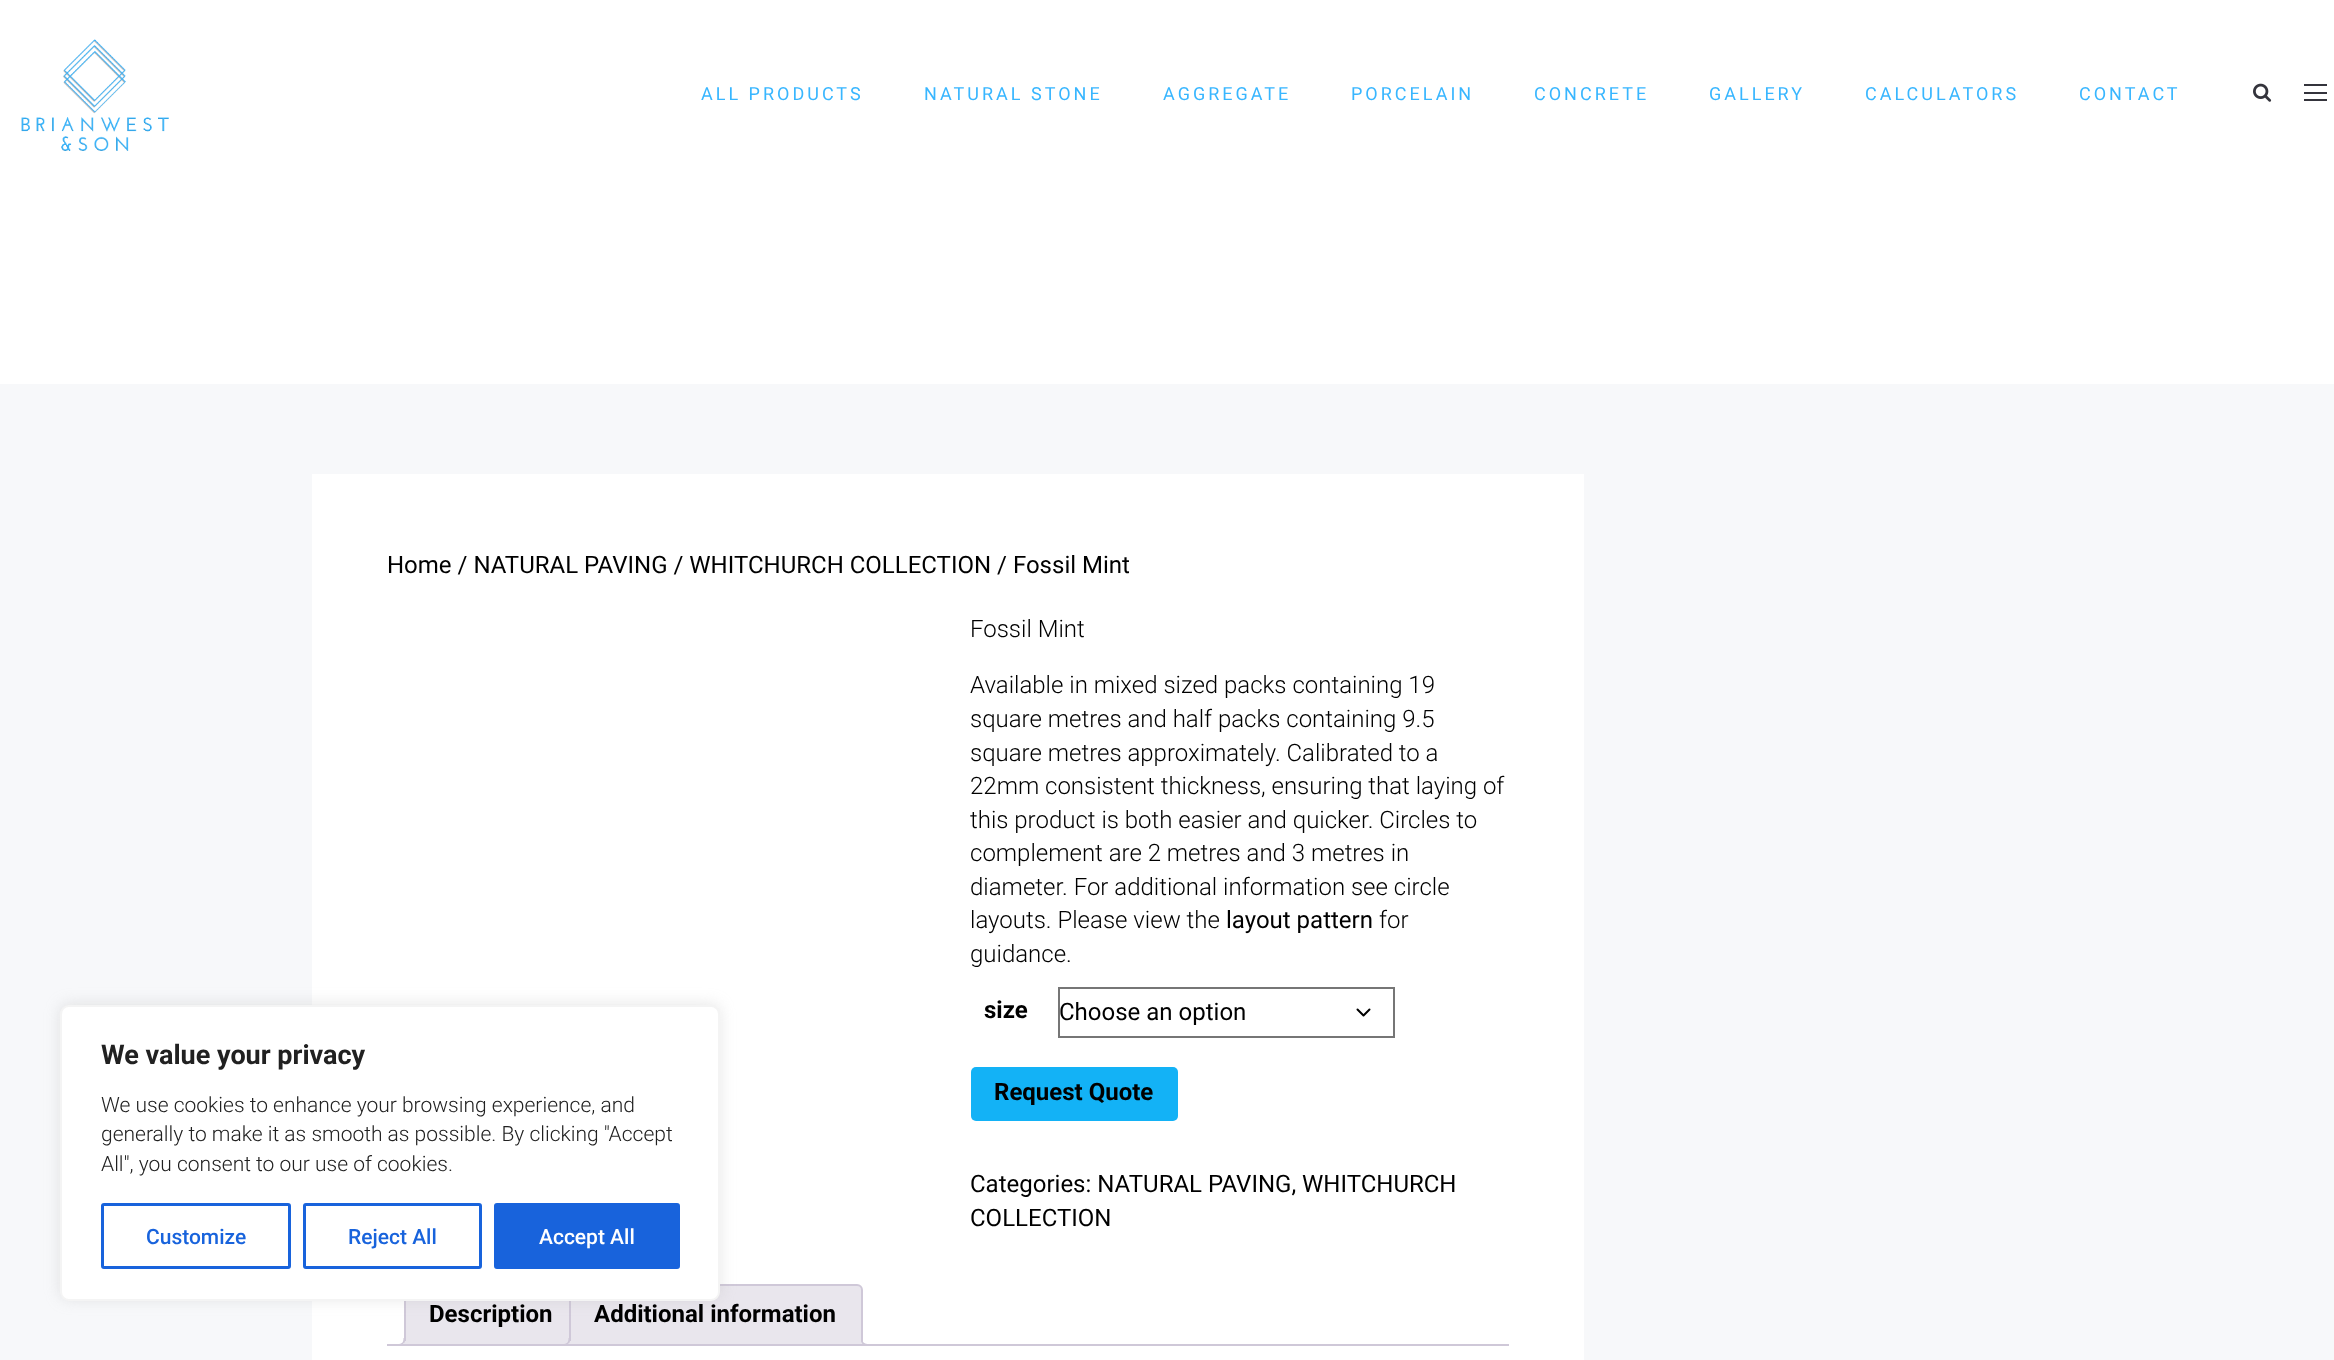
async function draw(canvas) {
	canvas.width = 2334;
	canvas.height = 1360;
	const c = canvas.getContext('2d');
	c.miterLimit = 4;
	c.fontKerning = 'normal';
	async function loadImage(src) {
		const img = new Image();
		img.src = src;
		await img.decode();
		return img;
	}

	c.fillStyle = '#fff';
	c.fillRect(0, 0, 2334, 1360);
	for (const [x, y, w, h, color] of [
		[0, 384, 2334, 976, '#f7f8fa'],
		[312, 474, 1272, 886, '#fff'],
		[406, 1301, 163, 43, '#e9e6ed'],
	]) {
		c.fillStyle = color;
		c.fillRect(x, y, w, h);
	}
	c.strokeStyle = '#cfc8d8';
	c.lineWidth = 2;
	c.strokeRect(405, 1285, 172, 60);
	c.beginPath();
	c.roundRect(570, 1285, 292, 60, [5, 5, 0, 0]);
	c.fill();
	c.stroke();
	c.fillStyle = '#acabab4d';
	c.filter = 'blur(7.5px)';
	c.beginPath();
	c.roundRect(60, 1004, 660, 295, 9);
	c.fill();
	c.filter = 'none';
	c.fillStyle = '#fff';
	c.beginPath();
	c.roundRect(61, 1006, 658, 294, 8);
	c.fill();
	c.strokeStyle = '#f4f4f4';
	c.stroke();
	c.font = 'bold 27px Roboto';
	c.fillStyle = '#212121';
	c.fillText('We value your privacy', 101, 1064);
	c.font = '300 21px Roboto';
	for (const [text, x, y] of [
		['We use cookies to enhance your browsing experience, and', 101, 1112],
		['generally to make it as smooth as possible. By clicking "Accept', 101, 1141],
		['All", you consent to our use of cookies.', 101, 1171],
	]) {
		c.fillText(text, x, y);
	}
	c.beginPath();
	c.roundRect(102.5, 1204.5, 187, 63, 1.5);
	c.strokeStyle = '#1863dc';
	c.lineWidth = 3;
	c.stroke();
	c.font = '500 21px Roboto';
	c.fillStyle = '#1863dc';
	c.fillText('Customize', 146, 1244);
	c.beginPath();
	c.roundRect(304.5, 1204.5, 176, 63, 1.5);
	c.stroke();
	c.fillText('Reject All', 348, 1244);
	c.beginPath();
	c.roundRect(495.5, 1204.5, 183, 63, 1.5);
	c.fill();
	c.stroke();
	c.fillStyle = '#fff';
	c.fillText('Accept All', 539, 1244);
	c.drawImage(await loadImage('img1.png'), 21, 39, 148, 112);
	c.drawImage(await loadImage('img2.png'), 2253, 83, 19, 19);
	for (const [x, y, w, h, color] of [
		[2304, 99, 23, 2, '#34343c'],
		[2304, 84, 23, 2, '#34343c'],
		[2304, 92, 23, 2, '#34343c'],
	]) {
		c.fillStyle = color;
		c.fillRect(x, y, w, h);
	}
	c.letterSpacing = '3px';
	c.font = '18px Roboto';
	c.fillStyle = '#38b6ff';
	for (const [text, x, y] of [
		['ALL PRODUCTS', 701, 100],
		['NATURAL STONE', 924, 100],
		['AGGREGATE', 1163, 100],
		['PORCELAIN', 1351, 100],
		['CONCRETE', 1534, 100],
		['GALLERY', 1709, 100],
		['CALCULATORS', 1865, 100],
		['CONTACT', 2079, 100],
	]) {
		c.fillText(text, x, y);
	}
	c.letterSpacing = '0px';
	c.font = '24px Roboto';
	c.fillStyle = '#000';
	c.fillText('Home / NATURAL PAVING / WHITCHURCH COLLECTION / Fossil Mint', 387, 573);
	c.font = '300 24px Roboto';
	for (const [text, x, y] of [
		['Fossil Mint', 970, 637],
		['Available in mixed sized packs containing 19', 970, 693],
		['square metres and half packs containing 9.5', 970, 727],
		['square metres approximately. Calibrated to a', 970, 761],
		['22mm consistent thickness, ensuring that laying of', 970, 794],
		['this product is both easier and quicker. Circles to', 970, 828],
		['complement are 2 metres and 3 metres in', 970, 861],
		['diameter. For additional information see circle', 970, 895],
		['layouts. Please view the', 970, 928],
	]) {
		c.fillText(text, x, y);
	}
	c.font = '24px Roboto';
	c.fillText('layout pattern', 1226, 928);
	c.font = '300 24px Roboto';
	c.fillText('for', 1379, 928);
	c.fillText('guidance.', 970, 962);
	c.font = 'bold 24px Roboto';
	c.fillText('size', 984, 1018);
	c.beginPath();
	c.moveTo(1357.5, 1009.5);
	c.lineTo(1363.5, 1015.5);
	c.lineTo(1369.5, 1009.5);
	c.strokeStyle = '#000';
	c.lineWidth = 2;
	c.lineCap = 'round';
	c.lineJoin = 'round';
	c.stroke();
	c.strokeStyle = '#767676';
	c.lineJoin = 'miter';
	c.strokeRect(1059, 988, 335, 49);
	c.font = '24px Roboto';
	c.fillText('Choose an option', 1059, 1020);
	c.fillStyle = '#13b2f6';
	c.beginPath();
	c.roundRect(971, 1067, 207, 54, 5);
	c.fill();
	c.font = 'bold 24px Roboto';
	c.fillStyle = '#000';
	c.fillText('Request Quote', 994, 1100);
	c.font = '24px Roboto';
	c.fillText('Categories: NATURAL PAVING, WHITCHURCH', 970, 1192);
	c.fillText('COLLECTION', 970, 1226);
	c.font = 'bold 24px Roboto';
	c.fillText('Description', 429, 1322);
	c.save();
	c.beginPath();
	c.rect(387, 1284, 1122, 62);
	c.clip();
	c.fillStyle = '#e9e6ed';
	c.beginPath();
	c.moveTo(401, 1345);
	c.lineTo(401, 1349);
	c.bezierCurveTo(406.5, 1349, 408, 1346, 408, 1341);
	c.lineTo(405, 1341);
	c.bezierCurveTo(404.5, 1343, 403, 1344.5, 401, 1345);
	c.closePath();
	c.fill();
	c.restore();
	c.fillStyle = '#cfc8d8';
	c.beginPath();
	c.moveTo(397.5, 1338);
	c.lineTo(405, 1338);
	c.bezierCurveTo(405, 1343.5, 403, 1345.5, 397.5, 1345.5);
	c.closePath();
	c.moveTo(397.5, 1338);
	c.lineTo(403.5, 1338);
	c.bezierCurveTo(403.5, 1342.5, 402, 1344, 397.5, 1344);
	c.closePath();
	c.fill('evenodd');
	c.fillStyle = '#000';
	c.fillText('Additional information', 594, 1322);
	c.save();
	c.beginPath();
	c.rect(387, 1284, 1122, 62);
	c.clip();
	c.fillStyle = '#e9e6ed';
	c.beginPath();
	c.moveTo(566, 1345);
	c.lineTo(566, 1349);
	c.bezierCurveTo(571.5, 1349, 573, 1346, 573, 1341);
	c.lineTo(570, 1341);
	c.bezierCurveTo(569.5, 1343, 568, 1344.5, 566, 1345);
	c.closePath();
	c.fill();
	c.restore();
	c.fillStyle = '#cfc8d8';
	c.beginPath();
	c.moveTo(562.5, 1338);
	c.lineTo(570, 1338);
	c.bezierCurveTo(570, 1343.5, 568, 1345.5, 562.5, 1345.5);
	c.closePath();
	c.moveTo(562.5, 1338);
	c.lineTo(568.5, 1338);
	c.bezierCurveTo(568.5, 1342.5, 567, 1344, 562.5, 1344);
	c.closePath();
	c.fill('evenodd');
	c.save();
	c.beginPath();
	c.rect(387, 1284, 1122, 62);
	c.clip();
	c.fillStyle = '#e9e6ed';
	c.beginPath();
	c.moveTo(858, 1341);
	c.bezierCurveTo(858, 1347, 860, 1349, 866, 1349);
	c.lineTo(866, 1345.5);
	c.bezierCurveTo(863.5, 1345, 862, 1343.5, 861, 1341);
	c.closePath();
	c.fill();
	c.restore();
	c.beginPath();
	c.moveTo(861, 1338);
	c.lineTo(868.5, 1338);
	c.lineTo(868.5, 1345.5);
	c.bezierCurveTo(864.5, 1345.5, 861, 1344, 861, 1339.5);
	c.closePath();
	c.moveTo(862.5, 1338);
	c.lineTo(868.5, 1338);
	c.lineTo(868.5, 1344);
	c.bezierCurveTo(865.5, 1344, 862.5, 1343, 862.5, 1339.5);
	c.closePath();
	c.fill('evenodd');
	c.fillRect(387, 1344, 1122, 2);
}

draw(document.querySelector('canvas'));
